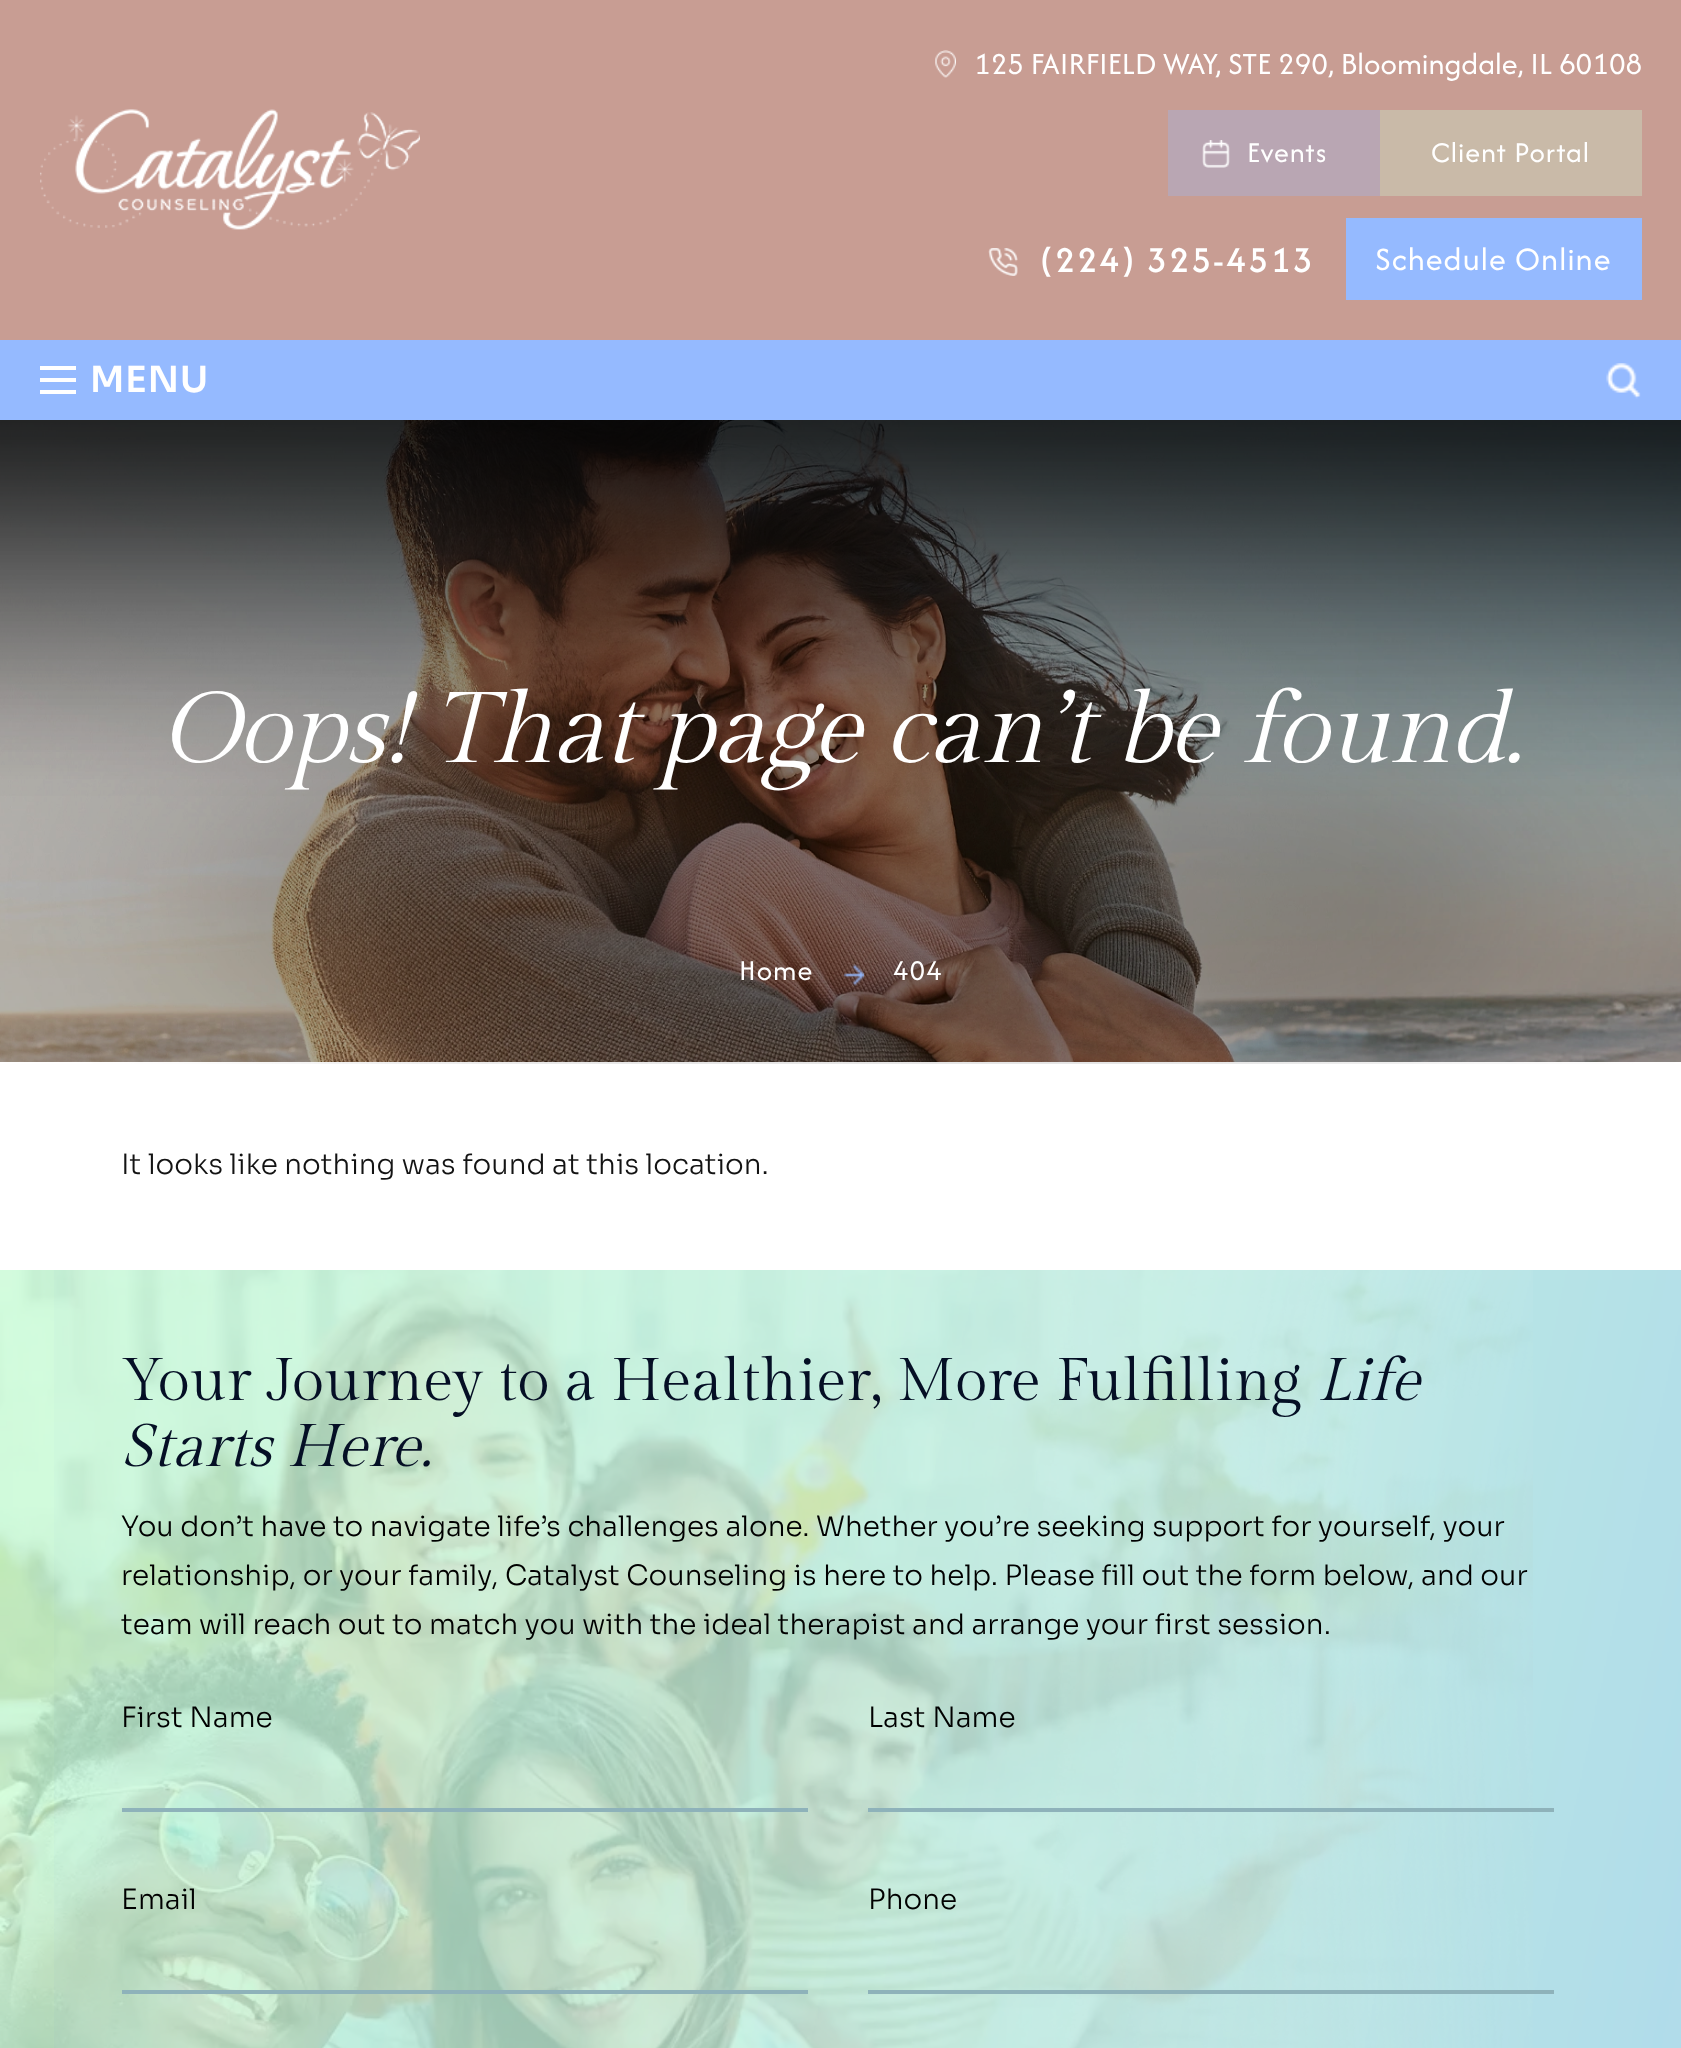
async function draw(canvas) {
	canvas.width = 1681;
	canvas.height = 2048;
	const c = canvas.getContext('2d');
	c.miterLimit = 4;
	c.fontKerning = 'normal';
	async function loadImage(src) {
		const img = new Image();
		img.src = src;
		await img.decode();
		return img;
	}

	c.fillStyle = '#fff';
	c.fillRect(0, 0, 1681, 2048);
	c.fillStyle = '#c89d93';
	c.fillRect(0, 0, 1681, 340);
	c.drawImage(await loadImage('img1.png'), 40, 109, 380, 121);
	c.drawImage(await loadImage('img2.png'), 935, 50, 21, 28);
	c.font = '32px Afacad Flux';
	c.fillStyle = '#fff';
	c.fillText('125 FAIRFIELD WAY, STE 290, Bloomingdale, IL 60108', 974, 74);
	c.fillStyle = '#b9a6b3';
	c.fillRect(1168, 110, 212, 86);
	c.drawImage(await loadImage('img3.png'), 1202, 140, 28, 28);
	c.letterSpacing = '1px';
	c.font = '30px Afacad Flux';
	c.fillStyle = '#fff';
	c.fillText('Events', 1247, 162);
	c.fillStyle = '#c9baa8';
	c.fillRect(1380, 110, 262, 86);
	c.fillStyle = '#fff';
	c.fillText('Client Portal', 1431, 162);
	c.drawImage(await loadImage('img4.png'), 988, 248, 30, 28);
	c.letterSpacing = '2.4px';
	c.font = '500 38px Afacad Flux';
	c.fillText('(224) 325-4513', 1040, 272);
	c.fillStyle = '#95baff';
	c.fillRect(1346, 218, 296, 82);
	c.letterSpacing = '1.1px';
	c.font = '34px Afacad Flux';
	c.fillStyle = '#fff';
	c.fillText('Schedule Online', 1375, 270);
	for (const [x, y, w, h, color] of [
		[0, 340, 1681, 80, '#95baff'],
		[40, 378, 36, 4, '#fff'],
		[40, 366, 36, 4, '#fff'],
		[40, 390, 36, 4, '#fff'],
	]) {
		c.fillStyle = color;
		c.fillRect(x, y, w, h);
	}
	c.letterSpacing = '1px';
	c.font = '600 36px Sora';
	c.fillText('MENU', 90, 392);
	c.drawImage(await loadImage('img5.png'), 1606, 363, 35, 36);
	c.drawImage(await loadImage('img6.png'), 0, 420, 1681, 642);
	c.drawImage(await loadImage('img7.png'), 0, 420, 1681, 644);
	c.letterSpacing = '-1.2px';
	c.font = 'italic 100px Gilda Display';
	c.fillText('Oops! That page can’t be found.', 161, 762);
	c.letterSpacing = '1px';
	c.font = '30px Afacad Flux';
	c.fillText('Home', 739, 980);
	c.drawImage(await loadImage('img8.png'), 844, 964, 20, 22);
	c.fillText('404', 893, 980);
	c.letterSpacing = '0px';
	c.font = '300 28px Sora';
	c.fillStyle = '#131313';
	c.fillText('It looks like nothing was found at this location.', 121, 1174);
	c.fillStyle = '#ccfed8';
	c.fillRect(0, 1270, 1681, 778);
	c.drawImage(await loadImage('img9.png'), 54, 1270, 1627, 778);
	c.drawImage(await loadImage('img10.png'), 0, 1270, 1533, 778);
	c.font = '60px Gilda Display';
	c.fillStyle = '#050f25';
	c.fillText('Your Journey to a Healthier, More Fulfilling', 121, 1400);
	c.font = 'italic 60px Gilda Display';
	c.fillText('Life', 1317, 1400);
	c.fillText('Starts Here.', 121, 1466);
	c.font = '300 28px Sora';
	c.fillStyle = '#000';
	for (const [text, x, y] of [
		['You don’t have to navigate life’s challenges alone. Whether you’re seeking support for yourself, your', 121, 1536],
		['relationship, or your family, Catalyst Counseling is here to help. Please fill out the form below, and our', 121, 1585],
		['team will reach out to match you with the ideal therapist and arrange your first session.', 121, 1634],
		['First Name', 121, 1727],
	]) {
		c.fillText(text, x, y);
	}
	c.fillStyle = '#8eb2ba';
	c.fillRect(122, 1808, 686, 4);
	c.fillStyle = '#000';
	c.fillText('Last Name', 868, 1727);
	c.fillStyle = '#8eb2ba';
	c.fillRect(868, 1808, 686, 4);
	c.fillStyle = '#000';
	c.fillText('Email', 121, 1909);
	c.fillStyle = '#8eb2ba';
	c.fillRect(122, 1990, 686, 4);
	c.fillStyle = '#000';
	c.fillText('Phone', 868, 1909);
	c.fillStyle = '#8eb2ba';
	c.fillRect(868, 1990, 686, 4);
}

draw(document.querySelector('canvas'));
